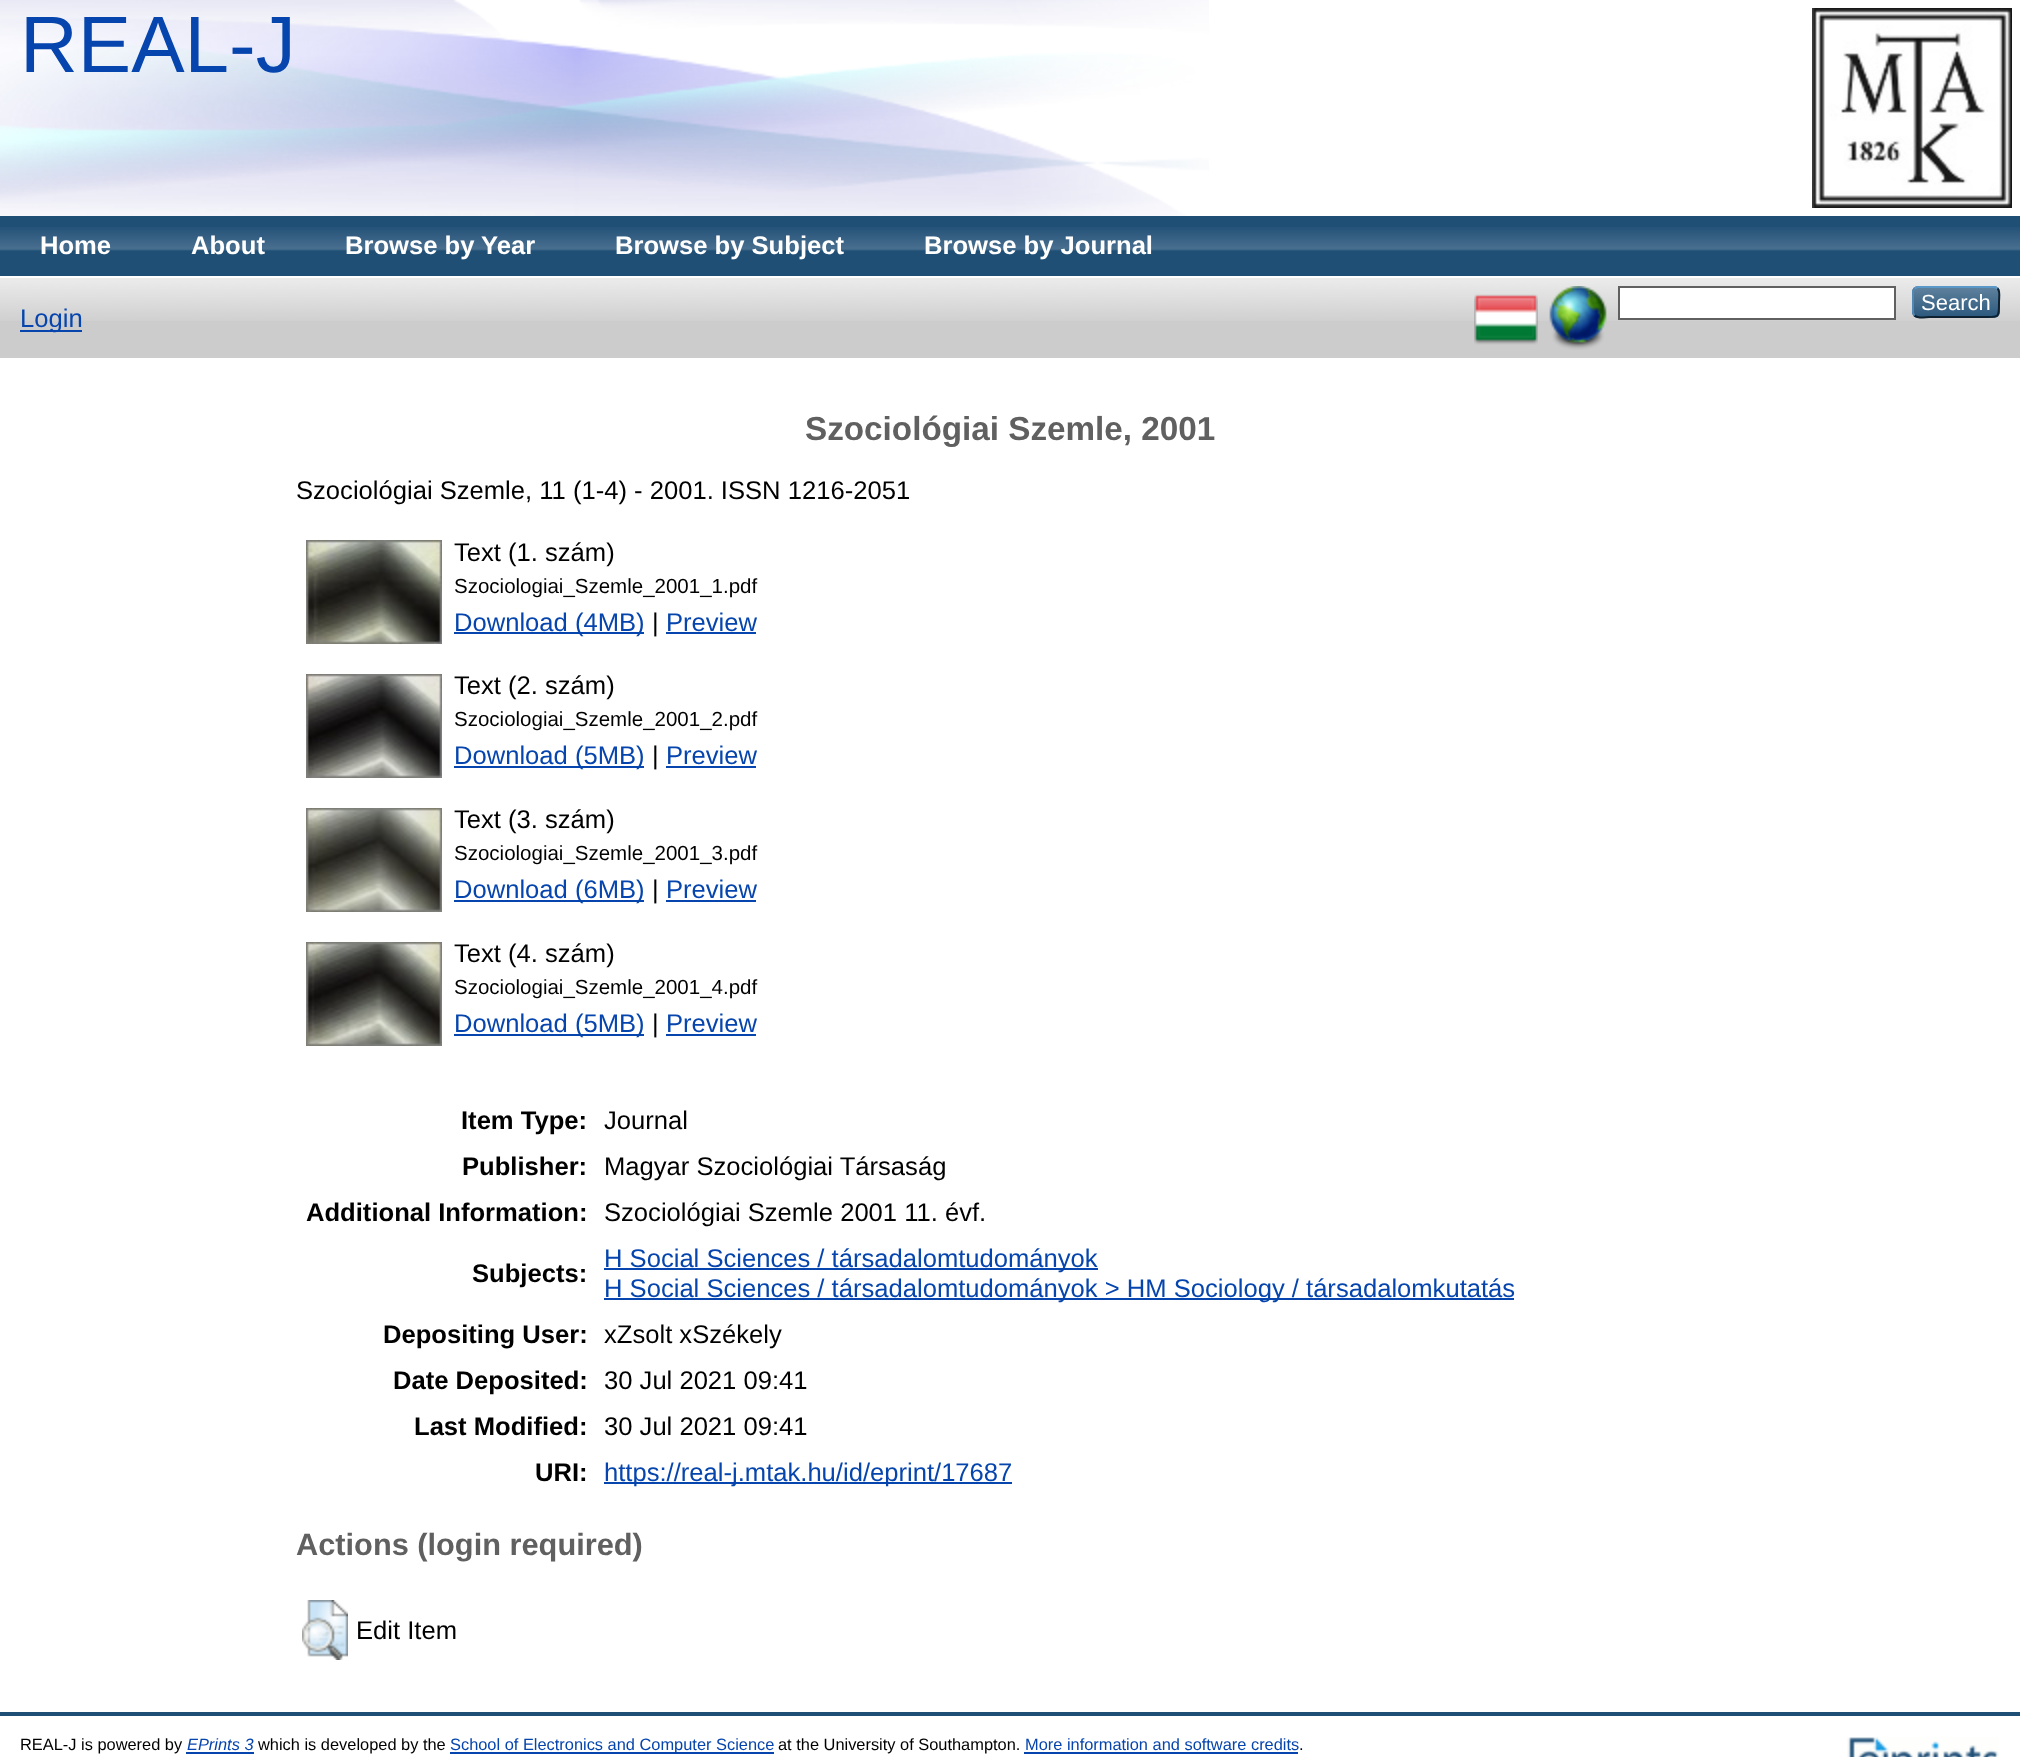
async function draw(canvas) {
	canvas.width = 2020;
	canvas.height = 1757;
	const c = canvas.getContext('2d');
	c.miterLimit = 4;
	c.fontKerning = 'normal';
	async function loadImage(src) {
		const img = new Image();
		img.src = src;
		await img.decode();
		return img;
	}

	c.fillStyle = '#fff';
	c.fillRect(0, 0, 2020, 1757);
	c.drawImage(await loadImage('img1.png'), 0, 0, 1209, 216);
	c.font = '80px Liberation Sans';
	c.fillStyle = '#0645ad';
	c.fillText('REAL-J', 20, 72);
	c.drawImage(await loadImage('img2.png'), 1812, 8, 200, 200);
	c.fillStyle = '#204f76';
	c.fillRect(0, 216, 2020, 60);
	c.drawImage(await loadImage('img3.png'), 0, 227, 2020, 24);
	c.font = 'bold 25.6px Liberation Sans';
	c.fillStyle = '#fff';
	for (const [text, x, y] of [
		['Home', 40, 254],
		['About', 191, 254],
		['Browse by Year', 345, 254],
		['Browse by Subject', 615, 254],
		['Browse by Journal', 924, 254],
	]) {
		c.fillText(text, x, y);
	}
	c.fillStyle = '#ccc';
	c.fillRect(0, 278, 2020, 80);
	c.drawImage(await loadImage('img4.png'), 0, 278, 2020, 43);
	c.drawImage(await loadImage('img5.png'), 1474, 294, 64, 51);
	c.drawImage(await loadImage('img6.png'), 1549, 286, 58, 64);
	c.fillStyle = '#fff';
	c.beginPath();
	c.rect(1619, 287, 276, 32);
	c.fill();
	c.strokeStyle = '#606060';
	c.lineWidth = 2;
	c.stroke();
	c.fillStyle = '#1f4f76';
	c.beginPath();
	c.roundRect(1912, 286, 88, 32, 6);
	c.fill();
	c.drawImage(await loadImage('img7.png'), 1912, 286, 88, 32);
	c.beginPath();
	c.moveTo(1914.5, 288.5);
	c.lineTo(1917.5, 287);
	c.lineTo(1994.5, 287);
	c.lineTo(1997.5, 288.5);
	c.strokeStyle = '#5b97c7';
	c.stroke();
	c.beginPath();
	c.moveTo(1997.5, 288.5);
	c.bezierCurveTo(2000.5, 291, 1999, 298.5, 1999, 302);
	c.bezierCurveTo(1999, 319, 1999.5, 317, 1981.5, 317);
	c.lineTo(1930.5, 317);
	c.bezierCurveTo(1929.5, 317, 1918, 319, 1914.5, 315.5);
	c.strokeStyle = '#0d2131';
	c.stroke();
	c.beginPath();
	c.moveTo(1914.5, 315.5);
	c.bezierCurveTo(1913.5, 314.5, 1913, 313.5, 1913, 312);
	c.lineTo(1913, 292);
	c.bezierCurveTo(1913, 290.5, 1913.5, 289.5, 1914.5, 288.5);
	c.strokeStyle = '#5287b3';
	c.stroke();
	c.font = '22px Liberation Sans';
	c.fillStyle = '#fff';
	c.fillText('Search', 1921, 310);
	c.fillStyle = '#0645ad';
	c.fillRect(20, 330, 62, 2);
	c.font = '25.6px Liberation Sans';
	c.fillText('Login', 20, 327);
	c.font = 'bold 33.25px Liberation Sans';
	c.fillStyle = '#606060';
	c.fillText('Szociológiai Szemle, 2001', 805, 440);
	c.font = '25.6px Liberation Sans';
	c.fillStyle = '#000';
	c.fillText('Szociológiai Szemle, 11 (1-4) - 2001. ISSN 1216-2051', 296, 499);
	c.drawImage(await loadImage('img8.png'), 306, 540, 136, 104);
	c.fillText('Text (1. szám)', 454, 561);
	c.font = '20.5px Liberation Sans';
	c.fillText('Szociologiai_Szemle_2001_1.pdf', 454, 593);
	c.fillStyle = '#0645ad';
	c.fillRect(454, 632, 190, 2);
	c.font = '25.6px Liberation Sans';
	c.fillText('Download (4MB)', 454, 631);
	c.fillStyle = '#000';
	c.fillText('|', 652, 631);
	c.fillStyle = '#0645ad';
	c.fillText('Preview', 666, 631);
	c.fillRect(666, 632, 90, 2);
	c.drawImage(await loadImage('img9.png'), 306, 674, 136, 104);
	c.fillStyle = '#000';
	c.fillText('Text (2. szám)', 454, 694);
	c.font = '20.5px Liberation Sans';
	c.fillText('Szociologiai_Szemle_2001_2.pdf', 454, 726);
	c.fillStyle = '#0645ad';
	c.fillRect(454, 766, 190, 2);
	c.font = '25.6px Liberation Sans';
	c.fillText('Download (5MB)', 454, 764);
	c.fillStyle = '#000';
	c.fillText('|', 652, 764);
	c.fillStyle = '#0645ad';
	c.fillText('Preview', 666, 764);
	c.fillRect(666, 766, 90, 2);
	c.drawImage(await loadImage('img10.png'), 306, 808, 136, 104);
	c.fillStyle = '#000';
	c.fillText('Text (3. szám)', 454, 828);
	c.font = '20.5px Liberation Sans';
	c.fillText('Szociologiai_Szemle_2001_3.pdf', 454, 860);
	c.fillStyle = '#0645ad';
	c.fillRect(454, 900, 190, 2);
	c.font = '25.6px Liberation Sans';
	c.fillText('Download (6MB)', 454, 898);
	c.fillStyle = '#000';
	c.fillText('|', 652, 898);
	c.fillStyle = '#0645ad';
	c.fillText('Preview', 666, 898);
	c.fillRect(666, 900, 90, 2);
	c.drawImage(await loadImage('img11.png'), 306, 942, 136, 104);
	c.fillStyle = '#000';
	c.fillText('Text (4. szám)', 454, 962);
	c.font = '20.5px Liberation Sans';
	c.fillText('Szociologiai_Szemle_2001_4.pdf', 454, 994);
	c.fillStyle = '#0645ad';
	c.fillRect(454, 1034, 190, 2);
	c.font = '25.6px Liberation Sans';
	c.fillText('Download (5MB)', 454, 1032);
	c.fillStyle = '#000';
	c.fillText('|', 652, 1032);
	c.fillStyle = '#0645ad';
	c.fillText('Preview', 666, 1032);
	c.fillRect(666, 1034, 90, 2);
	c.font = 'bold 25.6px Liberation Sans';
	c.fillStyle = '#000';
	c.fillText('Item Type:', 461, 1129);
	c.font = '25.6px Liberation Sans';
	c.fillText('Journal', 604, 1129);
	c.font = 'bold 25.6px Liberation Sans';
	c.fillText('Publisher:', 462, 1175);
	c.font = '25.6px Liberation Sans';
	c.fillText('Magyar Szociológiai Társaság', 604, 1175);
	c.font = 'bold 25.6px Liberation Sans';
	c.fillText('Additional Information:', 306, 1221);
	c.font = '25.6px Liberation Sans';
	c.fillText('Szociológiai Szemle 2001 11. évf.', 604, 1221);
	c.font = 'bold 25.6px Liberation Sans';
	c.fillText('Subjects:', 472, 1282);
	c.fillStyle = '#0645ad';
	c.fillRect(604, 1268, 494, 2);
	c.font = '25.6px Liberation Sans';
	c.fillText('H Social Sciences / társadalomtudományok', 604, 1267);
	c.fillRect(604, 1298, 910, 2);
	c.fillText('H Social Sciences / társadalomtudományok > HM Sociology / társadalomkutatás', 604, 1297);
	c.font = 'bold 25.6px Liberation Sans';
	c.fillStyle = '#000';
	c.fillText('Depositing User:', 383, 1343);
	c.font = '25.6px Liberation Sans';
	c.fillText('xZsolt xSzékely', 604, 1343);
	c.font = 'bold 25.6px Liberation Sans';
	c.fillText('Date Deposited:', 393, 1389);
	c.font = '25.6px Liberation Sans';
	c.fillText('30 Jul 2021 09:41', 604, 1389);
	c.font = 'bold 25.6px Liberation Sans';
	c.fillText('Last Modified:', 414, 1435);
	c.font = '25.6px Liberation Sans';
	c.fillText('30 Jul 2021 09:41', 604, 1435);
	c.font = 'bold 25.6px Liberation Sans';
	c.fillText('URI:', 535, 1481);
	c.fillStyle = '#0645ad';
	c.fillRect(604, 1482, 408, 2);
	c.font = '25.6px Liberation Sans';
	c.fillText('https://real-j.mtak.hu/id/eprint/17687', 604, 1481);
	c.font = 'bold 30.75px Liberation Sans';
	c.fillStyle = '#606060';
	c.fillText('Actions (login required)', 296, 1555);
	c.drawImage(await loadImage('img12.png'), 302, 1600, 46, 60);
	c.font = '25.6px Liberation Sans';
	c.fillStyle = '#000';
	c.fillText('Edit Item', 356, 1639);
	c.fillStyle = '#204f76';
	c.fillRect(0, 1712, 2020, 4);
	c.font = '16.4px Liberation Sans';
	c.fillStyle = '#000';
	c.fillText('REAL-J is powered by', 20, 1750);
	c.font = 'italic 16.4px Liberation Sans';
	c.fillStyle = '#0645ad';
	c.fillText('EPrints 3', 187, 1750);
	c.fillRect(186, 1752, 68, 2);
	c.font = '16.4px Liberation Sans';
	c.fillStyle = '#000';
	c.fillText('which is developed by the', 258, 1750);
	c.fillStyle = '#0645ad';
	c.fillRect(450, 1752, 324, 2);
	c.fillText('School of Electronics and Computer Science', 450, 1750);
	c.fillStyle = '#000';
	c.fillText('at the University of Southampton.', 778, 1750);
	c.fillStyle = '#0645ad';
	c.fillText('More information and software credits', 1025, 1750);
	c.fillRect(1024, 1752, 274, 2);
	c.fillStyle = '#000';
	c.fillText('.', 1299, 1750);
	c.drawImage(await loadImage('img13.png'), 1847, 1737, 152, 20);
}

draw(document.querySelector('canvas'));
